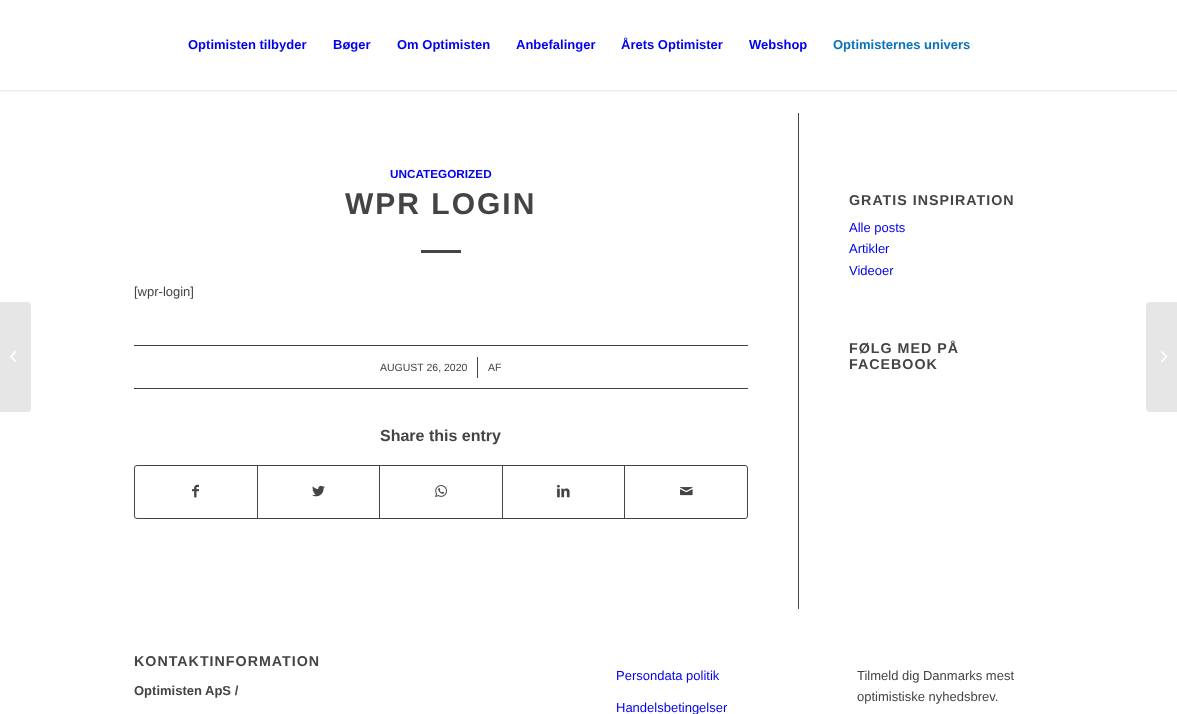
async function draw(canvas) {
	canvas.width = 1177;
	canvas.height = 714;
	const c = canvas.getContext('2d');
	c.miterLimit = 4;
	c.fontKerning = 'normal';
	async function loadImage(src) {
		const img = new Image();
		img.src = src;
		await img.decode();
		return img;
	}

	c.fillStyle = '#fff';
	c.fillRect(0, 0, 1177, 714);
	c.fillStyle = '#0000001a';
	c.filter = 'blur(1px)';
	c.beginPath();
	c.rect(-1, -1, 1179, 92);
	c.fill();
	c.filter = 'none';
	c.fillStyle = '#fff';
	c.fillRect(0, 0, 1177, 90);
	c.font = 'bold 13px Liberation Sans';
	c.fillStyle = '#00e';
	for (const [text, x, y] of [
		['Optimisten tilbyder', 188, 49],
		['Bøger', 333, 49],
		['Om Optimisten', 397, 49],
		['Anbefalinger', 516, 49],
		['Årets Optimister', 621, 49],
		['Webshop', 749, 49],
	]) {
		c.fillText(text, x, y);
	}
	c.fillStyle = '#0973ba';
	c.fillText('Optimisternes univers', 833, 49);
	c.fillStyle = '#e6e6e6';
	c.beginPath();
	c.roundRect(0, 302, 31, 110, [0, 4, 4, 0]);
	c.fill();
	c.drawImage(await loadImage('img1.png'), 10, 351, 7, 11);
	c.fillStyle = '#444';
	c.fillRect(798, 113, 1, 496);
	c.font = 'bold 11.75px Liberation Sans';
	c.fillStyle = '#00e';
	c.fillText('UNCATEGORIZED', 390, 178);
	c.letterSpacing = '2px';
	c.font = 'bold 30px Liberation Sans';
	c.fillStyle = '#444';
	c.fillText('WPR LOGIN', 345, 214);
	c.fillRect(421, 250, 40, 3);
	c.letterSpacing = '0px';
	c.font = '13px Liberation Sans';
	c.fillText('[wpr-login]', 134, 296);
	c.fillRect(134, 345, 614, 1);
	c.fillRect(134, 388, 614, 1);
	c.font = '10.5px Liberation Sans';
	c.fillText('AUGUST 26, 2020', 380, 371);
	c.fillRect(477, 357, 1, 21);
	c.fillText('AF', 488, 371);
	c.font = 'bold 16px Liberation Sans';
	c.fillText('Share this entry', 380, 441);
	c.beginPath();
	c.roundRect(134.5, 465.5, 613, 53, 2.5);
	c.strokeStyle = '#444';
	c.stroke();
	c.drawImage(await loadImage('img2.png'), 192, 484, 7, 14);
	c.fillRect(257, 466, 1, 52);
	c.drawImage(await loadImage('img3.png'), 312, 485, 13, 12);
	c.fillRect(379, 466, 1, 52);
	c.drawImage(await loadImage('img4.png'), 435, 485, 12, 13);
	c.fillRect(502, 466, 1, 52);
	c.drawImage(await loadImage('img5.png'), 557, 484, 13, 14);
	c.fillRect(624, 466, 1, 52);
	c.drawImage(await loadImage('img6.png'), 680, 487, 13, 9);
	c.letterSpacing = '1px';
	c.font = 'bold 14.25px Liberation Sans';
	c.fillText('GRATIS INSPIRATION', 849, 205);
	c.letterSpacing = '0px';
	c.font = '13px Liberation Sans';
	c.fillStyle = '#00e';
	for (const [text, x, y] of [
		['Alle posts', 849, 232],
		['Artikler', 849, 253],
		['Videoer', 849, 275],
	]) {
		c.fillText(text, x, y);
	}
	c.letterSpacing = '1px';
	c.font = 'bold 14.25px Liberation Sans';
	c.fillStyle = '#444';
	for (const [text, x, y] of [
		['FØLG MED PÅ', 849, 353],
		['FACEBOOK', 849, 369],
		['KONTAKTINFORMATION', 134, 666],
	]) {
		c.fillText(text, x, y);
	}
	c.letterSpacing = '0px';
	c.font = 'bold 13px Liberation Sans';
	c.fillText('Optimisten ApS /', 134, 695);
	c.font = '13px Liberation Sans';
	c.fillStyle = '#00e';
	c.fillText('Persondata politik', 616, 680);
	c.fillText('Handelsbetingelser', 616, 712);
	c.fillStyle = '#444';
	c.fillText('Tilmeld dig Danmarks mest', 857, 680);
	c.fillText('optimistiske nyhedsbrev.', 857, 701);
	c.fillStyle = '#e6e6e6';
	c.beginPath();
	c.roundRect(1146, 302, 31, 110, [4, 0, 0, 4]);
	c.fill();
	c.drawImage(await loadImage('img7.png'), 1161, 351, 7, 11);
}

draw(document.querySelector('canvas'));
